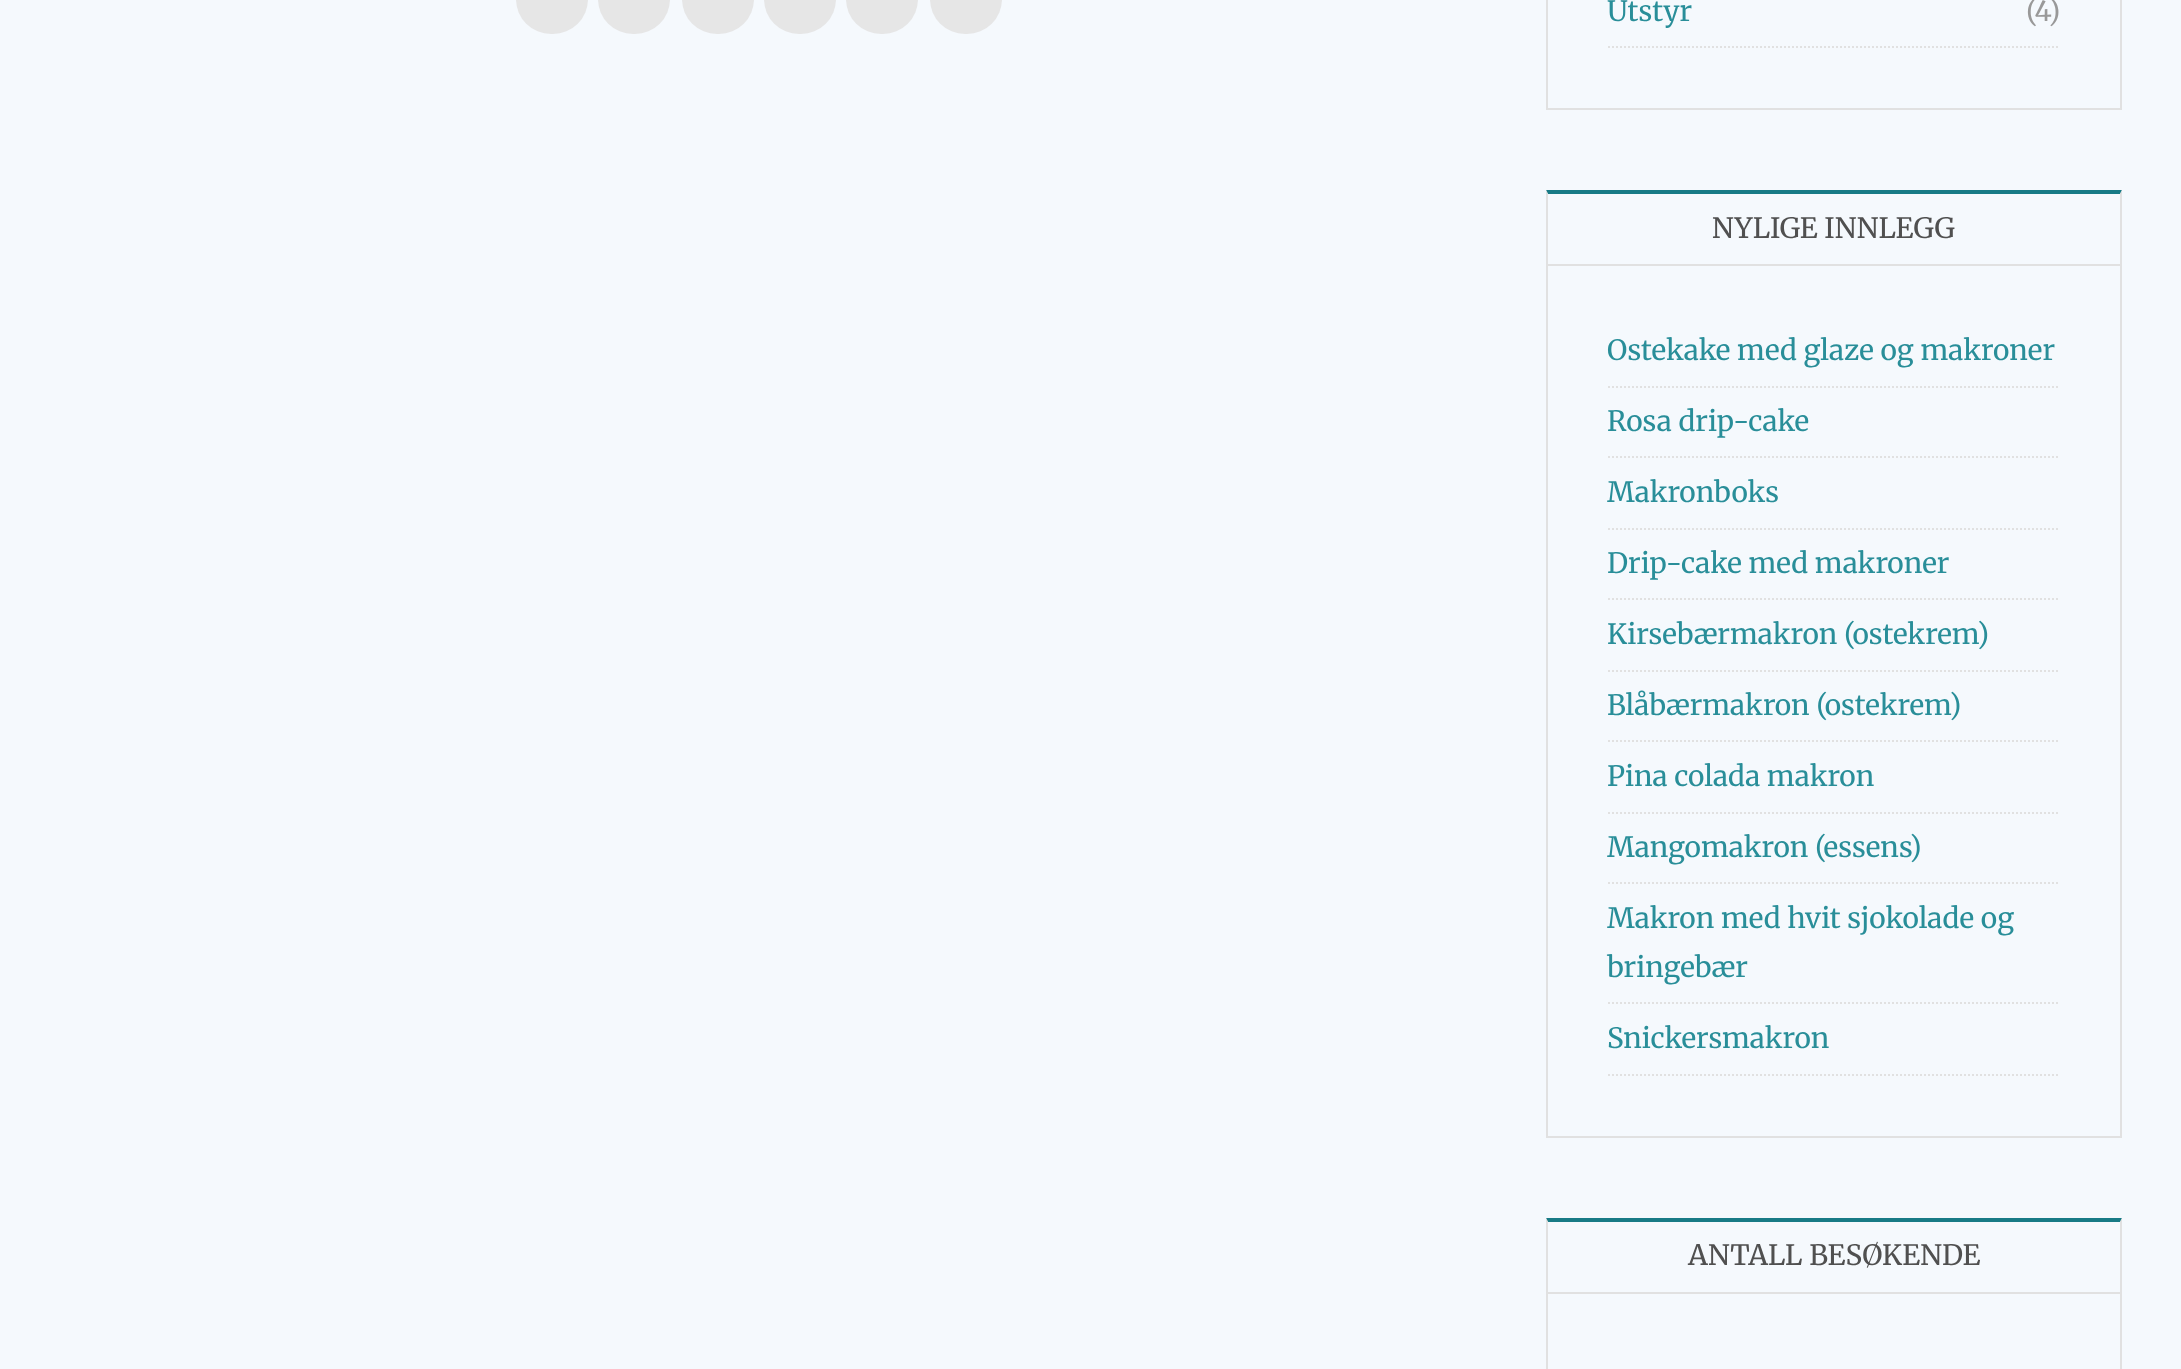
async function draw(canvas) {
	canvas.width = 2181;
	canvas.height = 1369;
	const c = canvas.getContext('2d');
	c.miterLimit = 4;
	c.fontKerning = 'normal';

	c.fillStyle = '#f5f9fd';
	c.fillRect(0, 0, 2181, 1369);
	c.fillStyle = '#e6e6e6';
	c.beginPath();
	c.roundRect(516, -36, 72, 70, 36);
	c.fill();
	c.beginPath();
	c.roundRect(598, -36, 72, 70, 36);
	c.fill();
	c.beginPath();
	c.roundRect(682, -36, 72, 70, 36);
	c.fill();
	c.beginPath();
	c.roundRect(764, -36, 72, 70, 36);
	c.fill();
	c.beginPath();
	c.roundRect(846, -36, 72, 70, 36);
	c.fill();
	c.beginPath();
	c.roundRect(930, -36, 72, 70, 36);
	c.fill();
	c.strokeStyle = '#e1e1e1';
	c.lineWidth = 2;
	c.strokeRect(1547, -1, 574, 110);
	c.beginPath();
	c.moveTo(1608, 47);
	c.lineTo(2060, 47);
	c.setLineDash([2, 2]);
	c.stroke();
	c.font = '300 28px Merriweather';
	c.fillStyle = '#298e99';
	c.fillText('Utstyr', 1607, 21);
	c.fillStyle = '#999';
	c.fillText('(4)', 2026, 21);
	c.setLineDash([]);
	c.strokeRect(1547, 191, 574, 946);
	c.fillStyle = '#187b86';
	c.beginPath();
	c.moveTo(1546, 190);
	c.lineTo(2122, 190);
	c.lineTo(2120, 194);
	c.lineTo(1548, 194);
	c.closePath();
	c.fill();
	c.fillStyle = '#e1e1e1';
	c.beginPath();
	c.moveTo(2122, 190);
	c.lineTo(2122, 266);
	c.lineTo(2120, 264);
	c.lineTo(2120, 194);
	c.closePath();
	c.fill();
	c.fillRect(1546, 264, 576, 2);
	c.beginPath();
	c.moveTo(1546, 266);
	c.lineTo(1546, 190);
	c.lineTo(1548, 194);
	c.lineTo(1548, 264);
	c.closePath();
	c.fill();
	c.fillStyle = '#505050';
	c.fillText('NYLIGE INNLEGG', 1712, 238);
	c.beginPath();
	c.moveTo(1608, 387);
	c.lineTo(2060, 387);
	c.setLineDash([2, 2]);
	c.stroke();
	c.fillStyle = '#298e99';
	c.fillText('Ostekake med glaze og makroner', 1607, 360);
	c.beginPath();
	c.moveTo(1608, 457);
	c.lineTo(2060, 457);
	c.stroke();
	c.fillText('Rosa drip-cake', 1607, 431);
	c.beginPath();
	c.moveTo(1608, 529);
	c.lineTo(2060, 529);
	c.stroke();
	c.fillText('Makronboks', 1607, 502);
	c.beginPath();
	c.moveTo(1608, 599);
	c.lineTo(2060, 599);
	c.stroke();
	c.fillText('Drip-cake med makroner', 1607, 573);
	c.beginPath();
	c.moveTo(1608, 671);
	c.lineTo(2060, 671);
	c.stroke();
	c.fillText('Kirsebærmakron (ostekrem)', 1607, 644);
	c.beginPath();
	c.moveTo(1608, 741);
	c.lineTo(2060, 741);
	c.stroke();
	c.fillText('Blåbærmakron (ostekrem)', 1607, 715);
	c.beginPath();
	c.moveTo(1608, 813);
	c.lineTo(2060, 813);
	c.stroke();
	c.fillText('Pina colada makron', 1607, 786);
	c.beginPath();
	c.moveTo(1608, 883);
	c.lineTo(2060, 883);
	c.stroke();
	c.fillText('Mangomakron (essens)', 1607, 857);
	c.beginPath();
	c.moveTo(1608, 1003);
	c.lineTo(2060, 1003);
	c.stroke();
	c.fillText('Makron med hvit sjokolade og', 1607, 928);
	c.fillText('bringebær', 1607, 977);
	c.beginPath();
	c.moveTo(1608, 1075);
	c.lineTo(2060, 1075);
	c.stroke();
	c.fillText('Snickersmakron', 1607, 1048);
	c.setLineDash([]);
	c.strokeRect(1547, 1219, 574, 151);
	c.fillStyle = '#187b86';
	c.beginPath();
	c.moveTo(1546, 1218);
	c.lineTo(2122, 1218);
	c.lineTo(2120, 1222);
	c.lineTo(1548, 1222);
	c.closePath();
	c.fill();
	c.fillStyle = '#e1e1e1';
	c.beginPath();
	c.moveTo(2122, 1218);
	c.lineTo(2122, 1294);
	c.lineTo(2120, 1292);
	c.lineTo(2120, 1222);
	c.closePath();
	c.fill();
	c.fillRect(1546, 1292, 576, 2);
	c.beginPath();
	c.moveTo(1546, 1294);
	c.lineTo(1546, 1218);
	c.lineTo(1548, 1222);
	c.lineTo(1548, 1292);
	c.closePath();
	c.fill();
	c.fillStyle = '#505050';
	c.fillText('ANTALL BESØKENDE', 1688, 1265);
}

draw(document.querySelector('canvas'));
